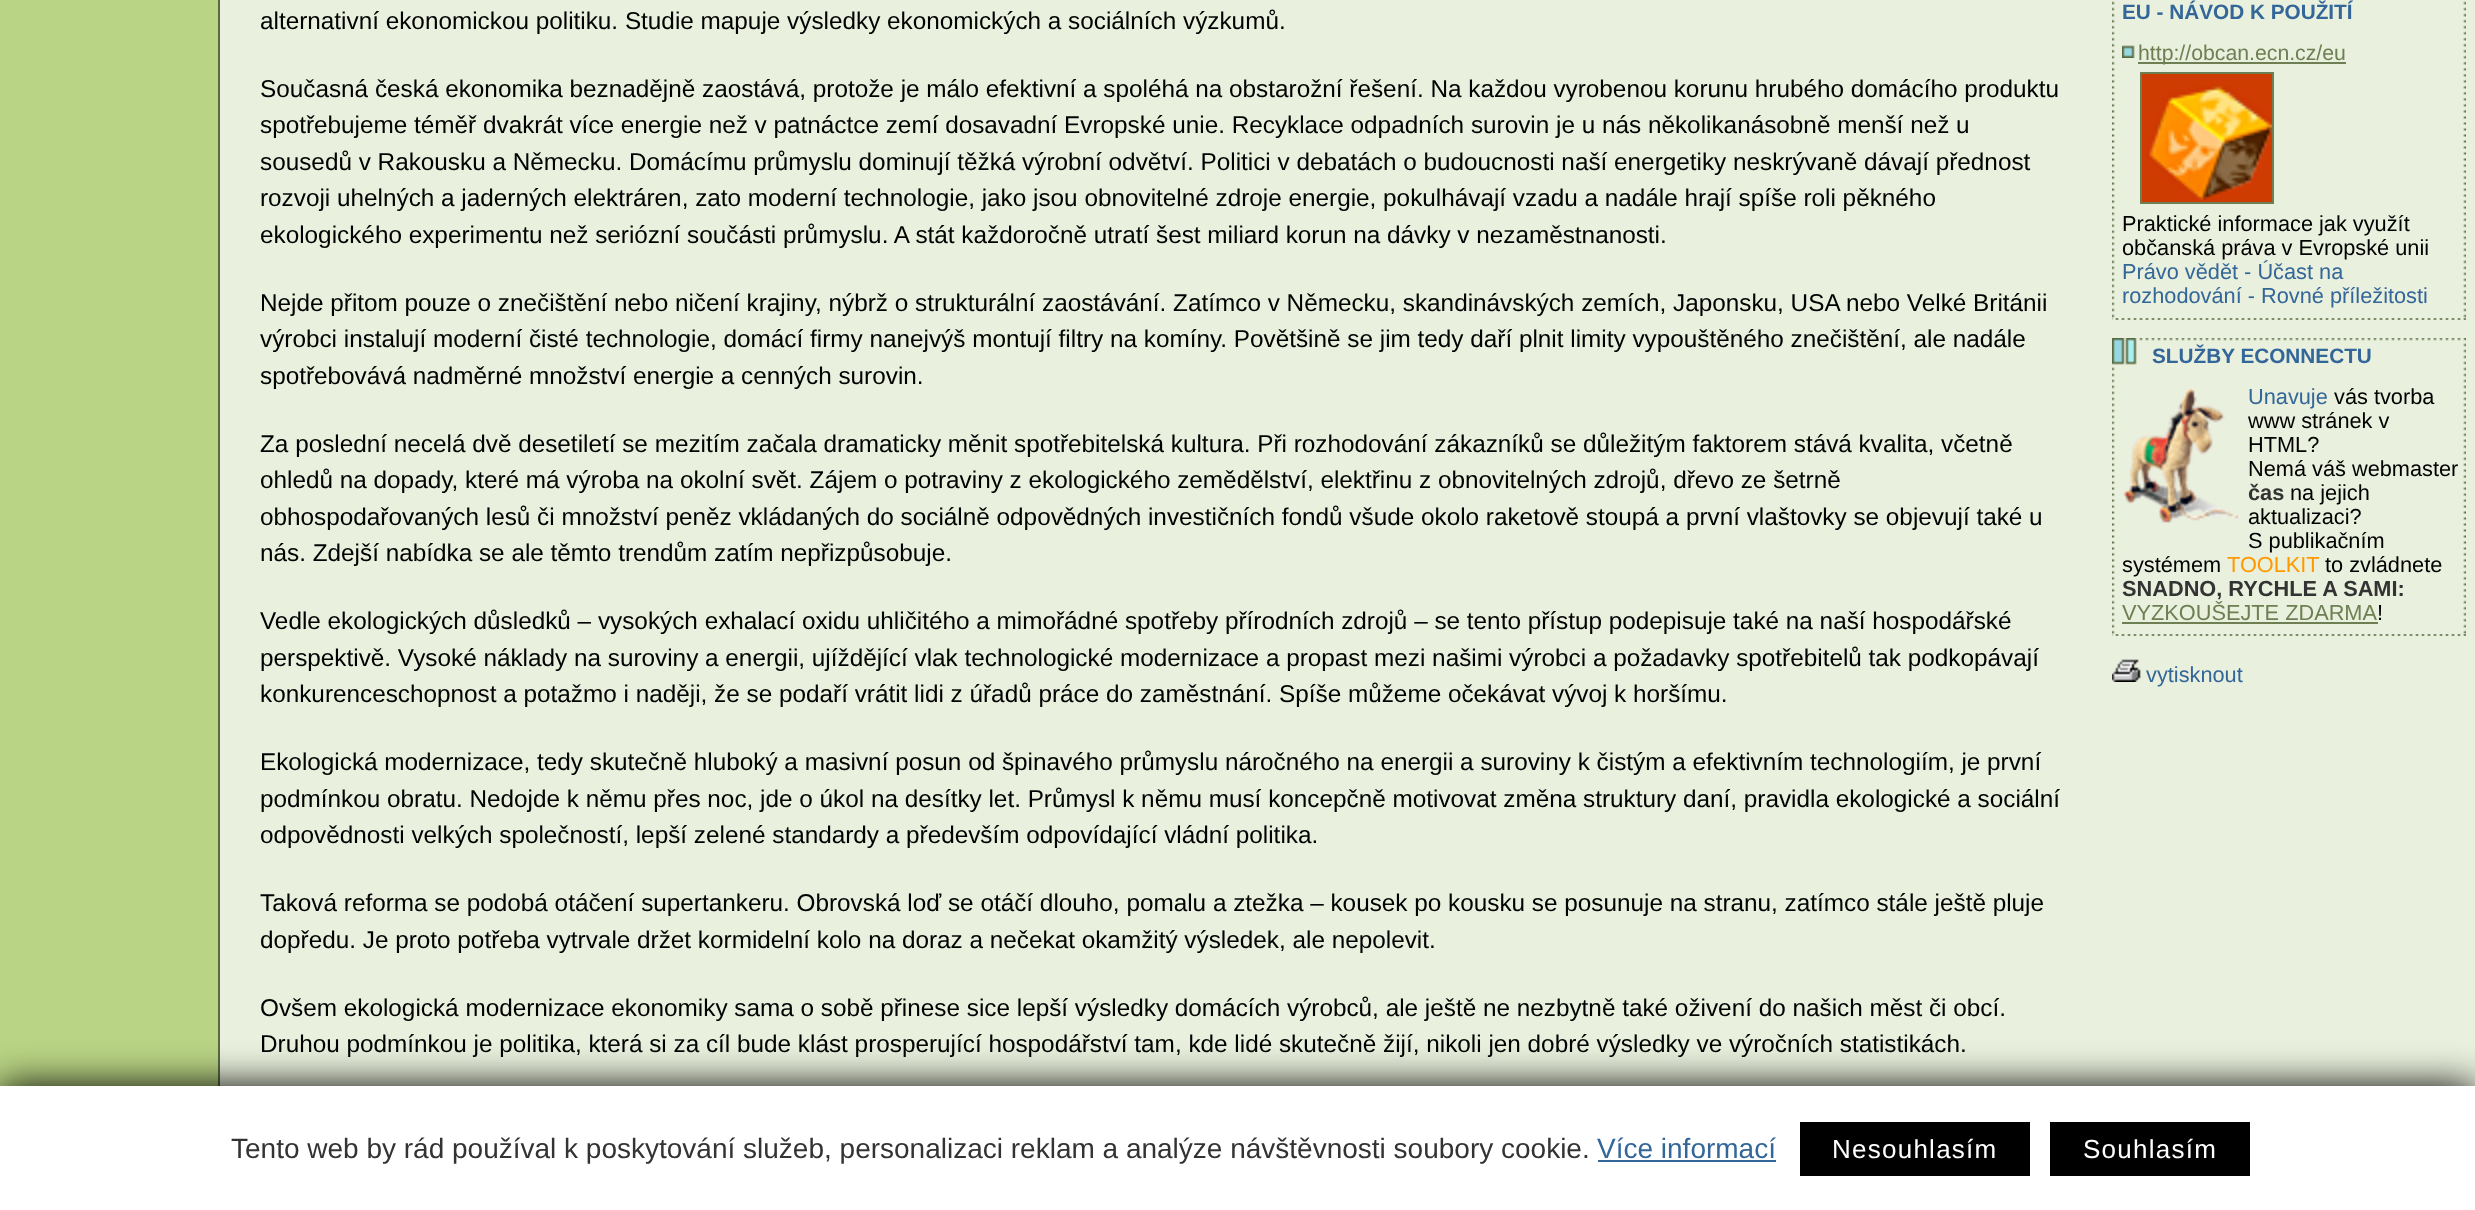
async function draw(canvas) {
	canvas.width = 2475;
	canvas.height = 1210;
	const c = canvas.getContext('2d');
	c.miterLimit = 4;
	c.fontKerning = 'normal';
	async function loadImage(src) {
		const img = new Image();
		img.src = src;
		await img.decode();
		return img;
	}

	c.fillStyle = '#b9d484';
	c.fillRect(0, 0, 2475, 1210);
	c.fillStyle = '#586a44';
	c.fillRect(218, 0, 2, 1086);
	c.fillStyle = '#e9f0dd';
	c.fillRect(220, 0, 2255, 1086);
	c.font = '24.32px Liberation Sans';
	c.fillStyle = '#000';
	for (const [text, x, y] of [
		['alternativní ekonomickou politiku. Studie mapuje výsledky ekonomických a sociálních výzkumů.', 260, 29],
		['Současná česká ekonomika beznadějně zaostává, protože je málo efektivní a spoléhá na obstarožní řešení. Na každou vyrobenou korunu hrubého domácího produktu', 260, 97],
		['spotřebujeme téměř dvakrát více energie než v patnáctce zemí dosavadní Evropské unie. Recyklace odpadních surovin je u nás několikanásobně menší než u', 260, 133],
		['sousedů v Rakousku a Německu. Domácímu průmyslu dominují těžká výrobní odvětví. Politici v debatách o budoucnosti naší energetiky neskrývaně dávají přednost', 260, 170],
		['rozvoji uhelných a jaderných elektráren, zato moderní technologie, jako jsou obnovitelné zdroje energie, pokulhávají vzadu a nadále hrají spíše roli pěkného', 260, 206],
		['ekologického experimentu než seriózní součásti průmyslu. A stát každoročně utratí šest miliard korun na dávky v nezaměstnanosti.', 260, 243],
		['Nejde přitom pouze o znečištění nebo ničení krajiny, nýbrž o strukturální zaostávání. Zatímco v Německu, skandinávských zemích, Japonsku, USA nebo Velké Británii', 260, 311],
		['výrobci instalují moderní čisté technologie, domácí firmy nanejvýš montují filtry na komíny. Povětšině se jim tedy daří plnit limity vypouštěného znečištění, ale nadále', 260, 347],
		['spotřebovává nadměrné množství energie a cenných surovin.', 260, 384],
		['Za poslední necelá dvě desetiletí se mezitím začala dramaticky měnit spotřebitelská kultura. Při rozhodování zákazníků se důležitým faktorem stává kvalita, včetně', 260, 452],
		['ohledů na dopady, které má výroba na okolní svět. Zájem o potraviny z ekologického zemědělství, elektřinu z obnovitelných zdrojů, dřevo ze šetrně', 260, 488],
		['obhospodařovaných lesů či množství peněz vkládaných do sociálně odpovědných investičních fondů všude okolo raketově stoupá a první vlaštovky se objevují také u', 260, 525],
		['nás. Zdejší nabídka se ale těmto trendům zatím nepřizpůsobuje.', 260, 561],
		['Vedle ekologických důsledků – vysokých exhalací oxidu uhličitého a mimořádné spotřeby přírodních zdrojů – se tento přístup podepisuje také na naší hospodářské', 260, 629],
		['perspektivě. Vysoké náklady na suroviny a energii, ujíždějící vlak technologické modernizace a propast mezi našimi výrobci a požadavky spotřebitelů tak podkopávají', 260, 666],
		['konkurenceschopnost a potažmo i naději, že se podaří vrátit lidi z úřadů práce do zaměstnání. Spíše můžeme očekávat vývoj k horšímu.', 260, 702],
		['Ekologická modernizace, tedy skutečně hluboký a masivní posun od špinavého průmyslu náročného na energii a suroviny k čistým a efektivním technologiím, je první', 260, 770],
		['podmínkou obratu. Nedojde k němu přes noc, jde o úkol na desítky let. Průmysl k němu musí koncepčně motivovat změna struktury daní, pravidla ekologické a sociální', 260, 807],
		['odpovědnosti velkých společností, lepší zelené standardy a především odpovídající vládní politika.', 260, 843],
		['Taková reforma se podobá otáčení supertankeru. Obrovská loď se otáčí dlouho, pomalu a ztežka – kousek po kousku se posunuje na stranu, zatímco stále ještě pluje', 260, 911],
		['dopředu. Je proto potřeba vytrvale držet kormidelní kolo na doraz a nečekat okamžitý výsledek, ale nepolevit.', 260, 948],
		['Ovšem ekologická modernizace ekonomiky sama o sobě přinese sice lepší výsledky domácích výrobců, ale ještě ne nezbytně také oživení do našich měst či obcí.', 260, 1016],
		['Druhou podmínkou je politika, která si za cíl bude klást prosperující hospodářství tam, kde lidé skutečně žijí, nikoli jen dobré výsledky ve výročních statistikách.', 260, 1052],
	]) {
		c.fillText(text, x, y);
	}
	c.drawImage(await loadImage('img1.png'), 2112, 1, 354, 317);
	c.drawImage(await loadImage('img2.png'), 2112, 318, 354, 2);
	c.font = 'bold 20.75px Liberation Sans';
	c.fillStyle = '#369';
	c.fillText('EU - NÁVOD K POUŽITÍ', 2122, 19);
	c.drawImage(await loadImage('img3.png'), 2122, 45, 13, 13);
	c.fillStyle = '#6d7f53';
	c.fillRect(2138, 62, 208, 2);
	c.font = '21.25px Liberation Sans';
	c.fillText('http://obcan.ecn.cz/eu', 2138, 60);
	c.strokeStyle = '#6d7f53';
	c.lineWidth = 2;
	c.strokeRect(2141, 73, 132, 130);
	c.drawImage(await loadImage('img4.png'), 2142, 74, 130, 128);
	c.font = '21.75px Liberation Sans';
	c.fillStyle = '#000';
	c.fillText('Praktické informace jak využít', 2122, 231);
	c.fillText('občanská práva v Evropské unii', 2122, 255);
	c.fillStyle = '#369';
	c.fillText('Právo vědět - Účast na', 2122, 279);
	c.fillText('rozhodování - Rovné příležitosti', 2122, 303);
	c.drawImage(await loadImage('img5.png'), 2112, 338, 354, 296);
	c.drawImage(await loadImage('img2.png'), 2112, 634, 354, 2);
	c.font = 'bold 20.75px Liberation Sans';
	c.fillText('SLUŽBY ECONNECTU', 2152, 363);
	c.drawImage(await loadImage('img6.png'), 2123, 388, 115, 135);
	c.font = '21.75px Liberation Sans';
	c.fillText('Unavuje', 2248, 404);
	c.fillStyle = '#000';
	for (const [text, x, y] of [
		['vás tvorba', 2334, 404],
		['www stránek v', 2248, 428],
		['HTML?', 2248, 452],
		['Nemá váš webmaster', 2248, 476],
	]) {
		c.fillText(text, x, y);
	}
	c.font = 'bold 21.75px Liberation Sans';
	c.fillStyle = '#333';
	c.fillText('čas', 2248, 500);
	c.font = '21.75px Liberation Sans';
	c.fillStyle = '#000';
	for (const [text, x, y] of [
		['na jejich', 2290, 500],
		['aktualizaci?', 2248, 524],
		['S publikačním', 2248, 548],
		['systémem', 2122, 572],
	]) {
		c.fillText(text, x, y);
	}
	c.fillStyle = '#f90';
	c.fillText('TOOLKIT', 2227, 572);
	c.fillStyle = '#000';
	c.fillText('to zvládnete', 2325, 572);
	c.font = 'bold 21.75px Liberation Sans';
	c.fillStyle = '#333';
	c.fillText('SNADNO, RYCHLE A SAMI:', 2122, 596);
	c.font = '21.75px Liberation Sans';
	c.fillStyle = '#6d7f53';
	c.fillText('VYZKOUŠEJTE ZDARMA', 2122, 620);
	c.fillRect(2122, 622, 256, 2);
	c.fillStyle = '#000';
	c.fillText('!', 2377, 620);
	c.drawImage(await loadImage('img7.png'), 2112, 659, 29, 23);
	c.fillStyle = '#369';
	c.fillText('vytisknout', 2146, 682);
	c.fillStyle = '#000';
	c.filter = 'blur(19px)';
	c.beginPath();
	c.rect(0, 1086, 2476, 124);
	c.fill();
	c.filter = 'none';
	c.fillStyle = '#fff';
	c.fillRect(0, 1086, 2475, 124);
	c.font = '28px Liberation Sans';
	c.fillStyle = '#333';
	c.fillText('Tento web by rád používal k poskytování služeb, personalizaci reklam a analýze návštěvnosti soubory cookie.', 231, 1158);
	c.fillStyle = '#369';
	c.fillText('Více informací', 1597, 1158);
	c.fillRect(1598, 1160, 178, 2);
	c.fillStyle = '#000';
	c.fillRect(1800, 1122, 230, 54);
	c.letterSpacing = '1.25px';
	c.font = '26px Liberation Sans';
	c.fillStyle = '#fff';
	c.fillText('Nesouhlasím', 1832, 1158);
	c.fillStyle = '#000';
	c.fillRect(2050, 1122, 200, 54);
	c.fillStyle = '#fff';
	c.fillText('Souhlasím', 2083, 1158);
}

draw(document.querySelector('canvas'));
